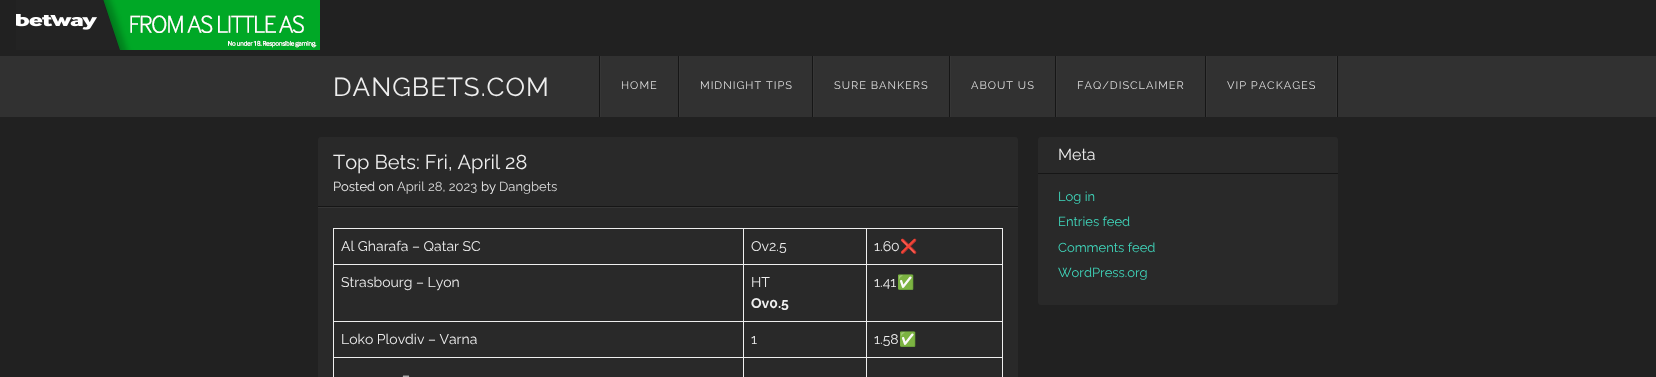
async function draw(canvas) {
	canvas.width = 1656;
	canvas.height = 377;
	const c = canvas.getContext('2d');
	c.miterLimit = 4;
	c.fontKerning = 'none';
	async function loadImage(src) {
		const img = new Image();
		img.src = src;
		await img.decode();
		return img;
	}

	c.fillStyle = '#212121';
	c.fillRect(0, 0, 1656, 377);
	c.drawImage(await loadImage('img1.png'), 16, 0, 304, 50);
	c.fillStyle = '#313131';
	c.fillRect(0, 56, 1656, 61);
	c.letterSpacing = '1px';
	c.font = '26px Raleway';
	c.fillStyle = '#eee';
	c.fillText('DANGBETS.COM', 333, 96);
	for (const [x, y, w, h, color] of [
		[1337, 56, 1, 61, '#161616'],
		[599, 56, 1, 61, '#161616'],
		[600, 56, 1, 61, '#363636'],
	]) {
		c.fillStyle = color;
		c.fillRect(x, y, w, h);
	}
	c.font = '11px Raleway';
	c.fillStyle = '#ddd';
	c.fillText('HOME', 621, 89);
	c.fillStyle = '#161616';
	c.fillRect(678, 56, 1, 61);
	c.fillStyle = '#363636';
	c.fillRect(679, 56, 1, 61);
	c.fillStyle = '#ddd';
	c.fillText('MIDNIGHT TIPS', 700, 89);
	c.fillStyle = '#161616';
	c.fillRect(812, 56, 1, 61);
	c.fillStyle = '#363636';
	c.fillRect(813, 56, 1, 61);
	c.fillStyle = '#ddd';
	c.fillText('SURE BANKERS', 834, 89);
	c.fillStyle = '#161616';
	c.fillRect(949, 56, 1, 61);
	c.fillStyle = '#363636';
	c.fillRect(950, 56, 1, 61);
	c.fillStyle = '#ddd';
	c.fillText('ABOUT US', 971, 89);
	c.fillStyle = '#161616';
	c.fillRect(1055, 56, 1, 61);
	c.fillStyle = '#363636';
	c.fillRect(1056, 56, 1, 61);
	c.fillStyle = '#ddd';
	c.fillText('FAQ/DISCLAIMER', 1077, 89);
	for (const [x, y, w, h, color] of [
		[1205, 56, 1, 61, '#161616'],
		[1336, 56, 1, 61, '#363636'],
		[1206, 56, 1, 61, '#363636'],
	]) {
		c.fillStyle = color;
		c.fillRect(x, y, w, h);
	}
	c.fillStyle = '#ddd';
	c.fillText('VIP PACKAGES', 1227, 89);
	c.fillStyle = '#292929';
	c.beginPath();
	c.roundRect(318, 137, 700, 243, 3);
	c.fill();
	c.fillStyle = '#161616';
	c.fillRect(318, 206, 700, 1);
	c.letterSpacing = '0px';
	c.font = '20px Raleway';
	c.fillStyle = '#eee';
	c.fillText('Top Bets: Fri, April', 333, 169);
	c.fillText('28', 505, 169);
	c.font = '13px Raleway';
	c.fillText('Posted on', 333, 191);
	c.fillStyle = '#ddd';
	c.fillText('April 28, 2023', 397, 191);
	c.fillStyle = '#eee';
	c.fillText('by', 481, 191);
	c.fillStyle = '#ddd';
	c.fillText('Dangbets', 499, 191);
	for (const [x, y, w, h, color] of [
		[318, 207, 700, 1, '#363636'],
		[866, 228, 137, 1, '#eee'],
		[866, 264, 137, 1, '#eee'],
		[866, 321, 137, 1, '#eee'],
		[866, 357, 137, 1, '#eee'],
		[866, 357, 1, 20, '#eee'],
		[743, 357, 124, 1, '#eee'],
		[866, 321, 1, 37, '#eee'],
		[743, 321, 124, 1, '#eee'],
		[866, 264, 1, 58, '#eee'],
		[743, 264, 124, 1, '#eee'],
		[866, 228, 1, 37, '#eee'],
		[743, 228, 124, 1, '#eee'],
		[743, 357, 1, 20, '#eee'],
		[333, 357, 411, 1, '#eee'],
		[743, 321, 1, 37, '#eee'],
		[333, 321, 411, 1, '#eee'],
		[743, 264, 1, 58, '#eee'],
		[333, 264, 411, 1, '#eee'],
		[743, 228, 1, 37, '#eee'],
		[333, 228, 411, 1, '#eee'],
		[333, 357, 1, 20, '#eee'],
		[333, 321, 1, 37, '#eee'],
		[333, 264, 1, 58, '#eee'],
		[333, 228, 1, 37, '#eee'],
	]) {
		c.fillStyle = color;
		c.fillRect(x, y, w, h);
	}
	c.font = '14px Raleway';
	c.fillText('Al Gharafa – Qatar SC', 341, 251);
	c.fillText('Ov2.5', 751, 251);
	for (const [x, y, w, h, color] of [
		[1002, 357, 1, 20, '#eee'],
		[1002, 321, 1, 37, '#eee'],
		[1002, 264, 1, 58, '#eee'],
		[1002, 228, 1, 37, '#eee'],
	]) {
		c.fillStyle = color;
		c.fillRect(x, y, w, h);
	}
	c.fillText('1.60', 874, 251);
	c.font = '14px Noto Color Emoji';
	c.fillText('❌', 900, 251);
	c.font = '14px Raleway';
	c.fillText('Strasbourg – Lyon', 341, 287);
	c.fillText('HT', 751, 287);
	c.font = 'bold 14px Raleway';
	c.fillText('Ov0.5', 751, 308);
	c.font = '14px Raleway';
	c.fillText('1.41', 874, 287);
	c.font = '14px Noto Color Emoji';
	c.fillText('✅', 897, 287);
	c.font = '14px Raleway';
	for (const [text, x, y] of [
		['Loko Plovdiv – Varna', 341, 344],
		['1', 751, 344],
		['1.58', 874, 344],
	]) {
		c.fillText(text, x, y);
	}
	c.font = '14px Noto Color Emoji';
	c.fillText('✅', 899, 344);
	c.font = '14px Raleway';
	c.fillText('–', 402, 380);
	c.fillStyle = '#292929';
	c.beginPath();
	c.roundRect(1038, 137, 300, 168, 3);
	c.fill();
	c.fillStyle = '#161616';
	c.fillRect(1038, 173, 300, 1);
	c.font = '16px Raleway';
	c.fillStyle = '#eee';
	c.fillText('Meta', 1058, 160);
	c.font = '13px Raleway';
	c.fillStyle = '#40d7bc';
	for (const [text, x, y] of [
		['Log in', 1058, 201],
		['Entries feed', 1058, 226],
		['Comments feed', 1058, 252],
		['WordPress.org', 1058, 277],
	]) {
		c.fillText(text, x, y);
	}
}

draw(document.querySelector('canvas'));
